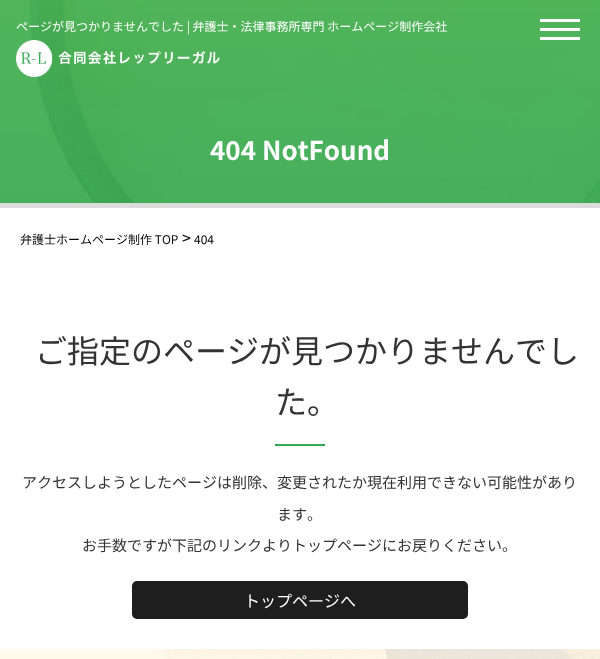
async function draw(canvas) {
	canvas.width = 600;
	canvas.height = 659;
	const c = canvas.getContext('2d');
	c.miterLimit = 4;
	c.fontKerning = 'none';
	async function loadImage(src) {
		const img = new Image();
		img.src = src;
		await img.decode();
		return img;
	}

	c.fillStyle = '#fff';
	c.fillRect(0, 0, 600, 659);
	c.drawImage(await loadImage('img1.png'), 0, 0, 600, 203);
	for (const [x, y, w, h, color] of [
		[0, 203, 600, 5, '#dcdcdc'],
		[540, 19, 40, 3, '#fff'],
		[540, 28, 40, 3, '#fff'],
		[540, 37, 40, 3, '#fff'],
	]) {
		c.fillStyle = color;
		c.fillRect(x, y, w, h);
	}
	c.drawImage(await loadImage('img2.png'), 16, 40, 204, 37);
	c.font = '12px Noto Sans JP';
	c.fillText('ページが見つかりませんでした | 弁護士・法律事務所専門 ホームページ制作会社', 16, 31);
	c.font = 'bold 26px Noto Sans JP';
	c.fillText('404 NotFound', 210, 160);
	c.font = '12px Noto Sans JP';
	c.fillStyle = '#0a0a0a';
	c.fillText('弁護士ホームページ制作 TOP', 20, 244);
	c.font = '16px Noto Sans JP';
	c.fillStyle = '#000';
	c.fillText('>', 182, 244);
	c.font = '12px Noto Sans JP';
	c.fillText('404', 194, 244);
	c.font = '32px Noto Sans JP';
	c.fillStyle = '#333';
	c.fillText('ご指定のページが見つかりませんでし', 35, 363);
	c.fillText('た。', 275, 414);
	c.fillStyle = '#34a853';
	c.fillRect(275, 444, 50, 2);
	c.font = '15px Noto Sans JP';
	c.fillStyle = '#333';
	for (const [text, x, y] of [
		['アクセスしようとしたページは削除、変更されたか現在利用できない可能性があり', 22, 488],
		['ます。', 277, 520],
		['お手数ですが下記のリンクよりトップページにお戻りください。', 82, 551],
	]) {
		c.fillText(text, x, y);
	}
	c.fillStyle = '#1e1e1e';
	c.beginPath();
	c.roundRect(132, 581, 336, 38, 5);
	c.fill();
	c.font = '16px Noto Sans JP';
	c.fillStyle = '#fff';
	c.fillText('トップページへ', 244, 607);
	c.drawImage(await loadImage('img3.png'), 0, 649, 600, 10);
}

draw(document.querySelector('canvas'));
